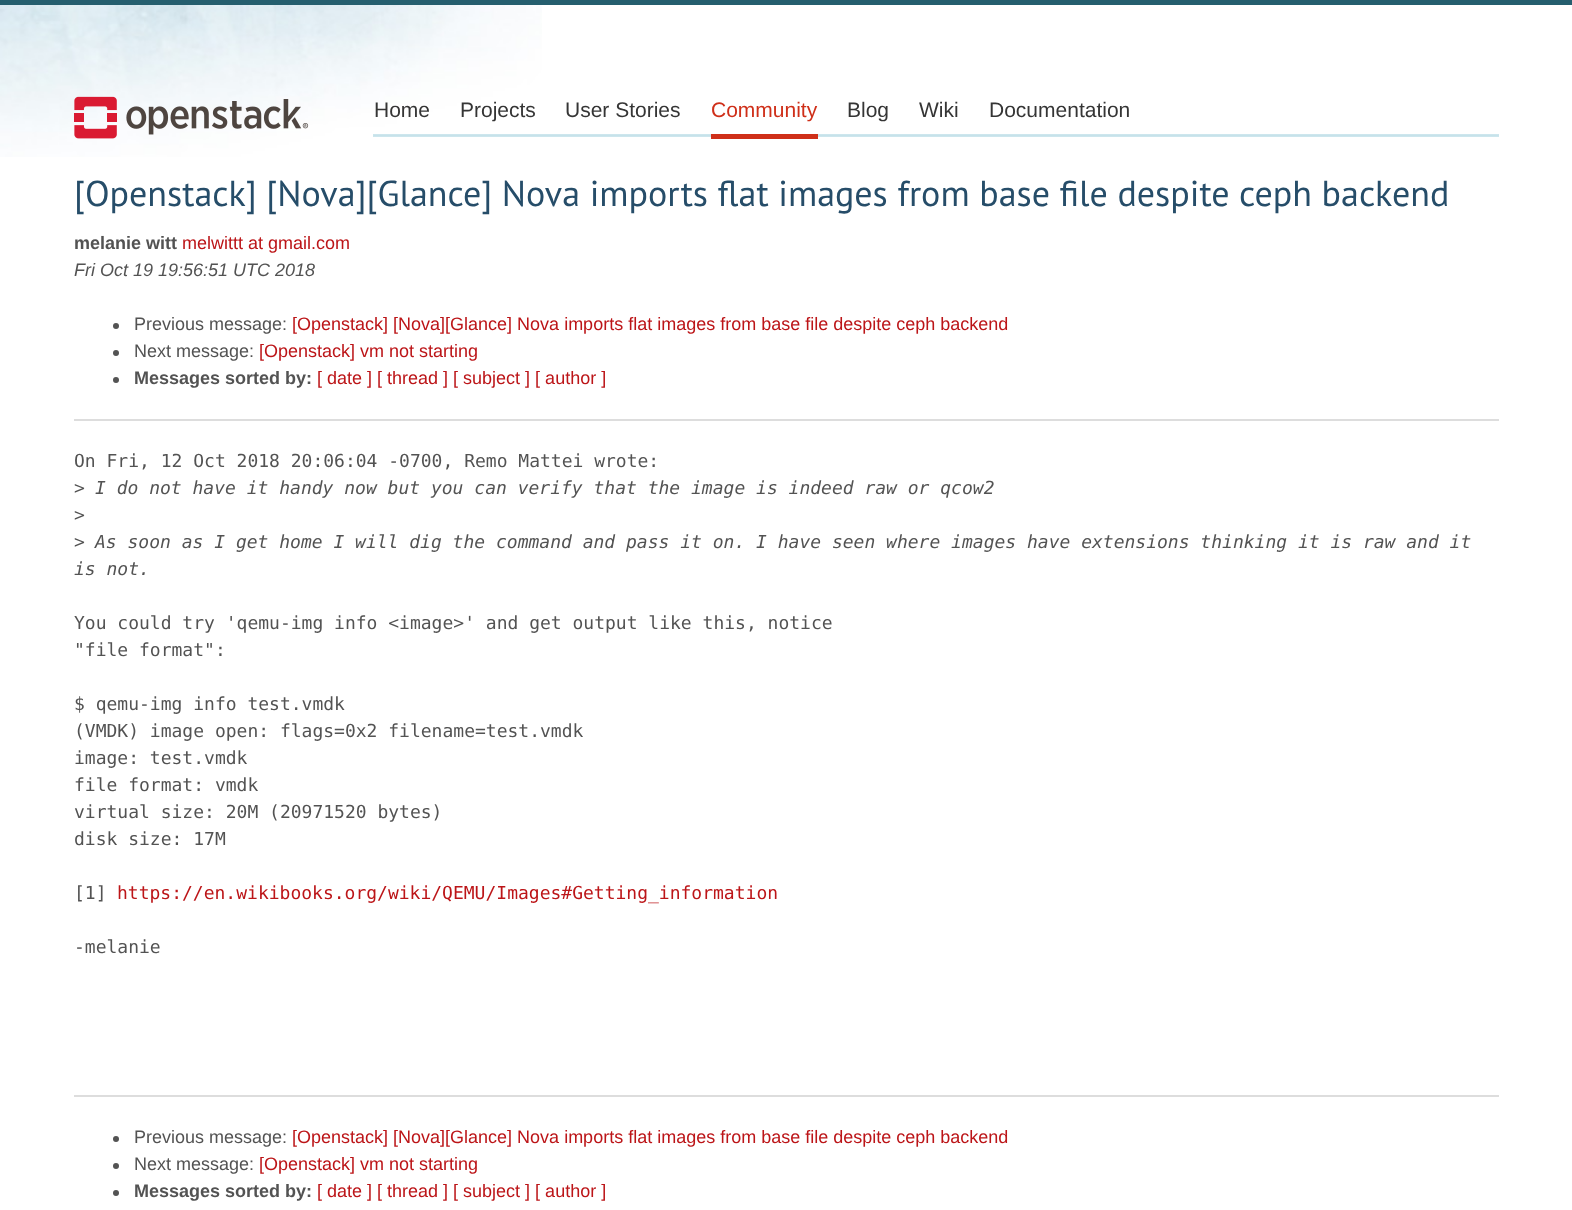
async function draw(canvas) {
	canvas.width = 1572;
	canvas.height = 1210;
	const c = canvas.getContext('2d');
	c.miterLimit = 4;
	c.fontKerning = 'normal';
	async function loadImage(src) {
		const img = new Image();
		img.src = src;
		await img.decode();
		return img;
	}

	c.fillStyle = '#fff';
	c.fillRect(0, 0, 1572, 1210);
	c.drawImage(await loadImage('img1.png'), 0, 5, 542, 152);
	c.fillStyle = '#255e6e';
	c.fillRect(0, 0, 1572, 5);
	c.drawImage(await loadImage('img2.png'), 74, 96, 235, 43);
	c.fillStyle = '#cde6ed';
	c.fillRect(373, 134, 1126, 3);
	c.drawImage(await loadImage('img3.png'), 373, 135, 1126, 1);
	c.font = '21px Liberation Sans';
	c.fillStyle = '#353535';
	for (const [text, x, y] of [
		['Home', 374, 117],
		['Projects', 460, 117],
		['User Stories', 565, 117],
	]) {
		c.fillText(text, x, y);
	}
	c.fillStyle = '#cf2f19';
	c.fillRect(711, 134, 107, 5);
	c.fillText('Community', 711, 117);
	c.fillStyle = '#353535';
	for (const [text, x, y] of [
		['Blog', 847, 117],
		['Wiki', 919, 117],
		['Documentation', 989, 117],
	]) {
		c.fillText(text, x, y);
	}
	c.font = '36px PT Sans';
	c.fillStyle = '#264d69';
	c.fillText('[Openstack] [Nova][Glance] Nova imports flat images from base file despite ceph backend', 74, 206);
	c.font = 'bold 18px Liberation Sans';
	c.fillStyle = '#535353';
	c.fillText('melanie witt', 74, 249);
	c.font = '18px Liberation Sans';
	c.fillStyle = '#bc1518';
	c.fillText('melwittt at gmail.com', 182, 249);
	c.font = 'italic 18px Liberation Sans';
	c.fillStyle = '#535353';
	c.fillText('Fri Oct 19 19:56:51 UTC 2018', 74, 276);
	c.beginPath();
	c.arc(116, 326, 3, 0, 2 * Math.PI);
	c.fill();
	c.font = '18px Liberation Sans';
	c.fillText('Previous message:', 134, 330);
	c.fillStyle = '#bc1518';
	c.fillText('[Openstack] [Nova][Glance] Nova imports flat images from base file despite ceph backend', 292, 330);
	c.fillStyle = '#535353';
	c.beginPath();
	c.arc(116, 353, 3, 0, 2 * Math.PI);
	c.fill();
	c.fillText('Next message:', 134, 357);
	c.fillStyle = '#bc1518';
	c.fillText('[Openstack] vm not starting', 259, 357);
	c.fillStyle = '#535353';
	c.beginPath();
	c.arc(116, 380, 3, 0, 2 * Math.PI);
	c.fill();
	c.font = 'bold 18px Liberation Sans';
	c.fillText('Messages sorted by:', 134, 384);
	c.font = '18px Liberation Sans';
	c.fillStyle = '#bc1518';
	c.fillText('[ date ] [ thread ] [ subject ] [ author ]', 317, 384);
	c.fillStyle = '#ddd';
	c.fillRect(74, 419, 1425, 2);
	c.font = '18px DejaVu Sans Mono';
	c.fillStyle = '#535353';
	c.fillText('On Fri, 12 Oct 2018 20:06:04 -0700, Remo Mattei wrote:', 74, 467);
	c.fillText('>', 74, 494);
	c.font = 'italic 18px DejaVu Sans Mono';
	c.fillText('I do not have it handy now but you can verify that the image is indeed raw or qcow2', 95, 494);
	c.font = '18px DejaVu Sans Mono';
	c.fillText('>', 74, 521);
	c.fillText('>', 74, 548);
	c.font = 'italic 18px DejaVu Sans Mono';
	c.fillText('As soon as I get home I will dig the command and pass it on. I have seen where images have extensions thinking it is raw and it', 95, 548);
	c.fillText('is not.', 74, 575);
	c.font = '18px DejaVu Sans Mono';
	for (const [text, x, y] of [
		['You could try \'qemu-img info <image>\' and get output like this, notice', 74, 629],
		['"file format":', 74, 656],
		['$ qemu-img info test.vmdk', 74, 710],
		['(VMDK) image open: flags=0x2 filename=test.vmdk', 74, 737],
		['image: test.vmdk', 74, 764],
		['file format: vmdk', 74, 791],
		['virtual size: 20M (20971520 bytes)', 74, 818],
		['disk size: 17M', 74, 845],
		['[1]', 74, 899],
	]) {
		c.fillText(text, x, y);
	}
	c.fillStyle = '#bc1518';
	c.fillText('https://en.wikibooks.org/wiki/QEMU/Images#Getting_information', 117, 899);
	c.fillStyle = '#535353';
	c.fillText('-melanie', 74, 953);
	c.fillStyle = '#ddd';
	c.fillRect(74, 1095, 1425, 2);
	c.fillStyle = '#535353';
	c.beginPath();
	c.arc(116, 1139, 3, 0, 2 * Math.PI);
	c.fill();
	c.font = '18px Liberation Sans';
	c.fillText('Previous message:', 134, 1143);
	c.fillStyle = '#bc1518';
	c.fillText('[Openstack] [Nova][Glance] Nova imports flat images from base file despite ceph backend', 292, 1143);
	c.fillStyle = '#535353';
	c.beginPath();
	c.arc(116, 1166, 3, 0, 2 * Math.PI);
	c.fill();
	c.fillText('Next message:', 134, 1170);
	c.fillStyle = '#bc1518';
	c.fillText('[Openstack] vm not starting', 259, 1170);
	c.fillStyle = '#535353';
	c.beginPath();
	c.arc(116, 1193, 3, 0, 2 * Math.PI);
	c.fill();
	c.font = 'bold 18px Liberation Sans';
	c.fillText('Messages sorted by:', 134, 1197);
	c.font = '18px Liberation Sans';
	c.fillStyle = '#bc1518';
	c.fillText('[ date ] [ thread ] [ subject ] [ author ]', 317, 1197);
}

draw(document.querySelector('canvas'));
